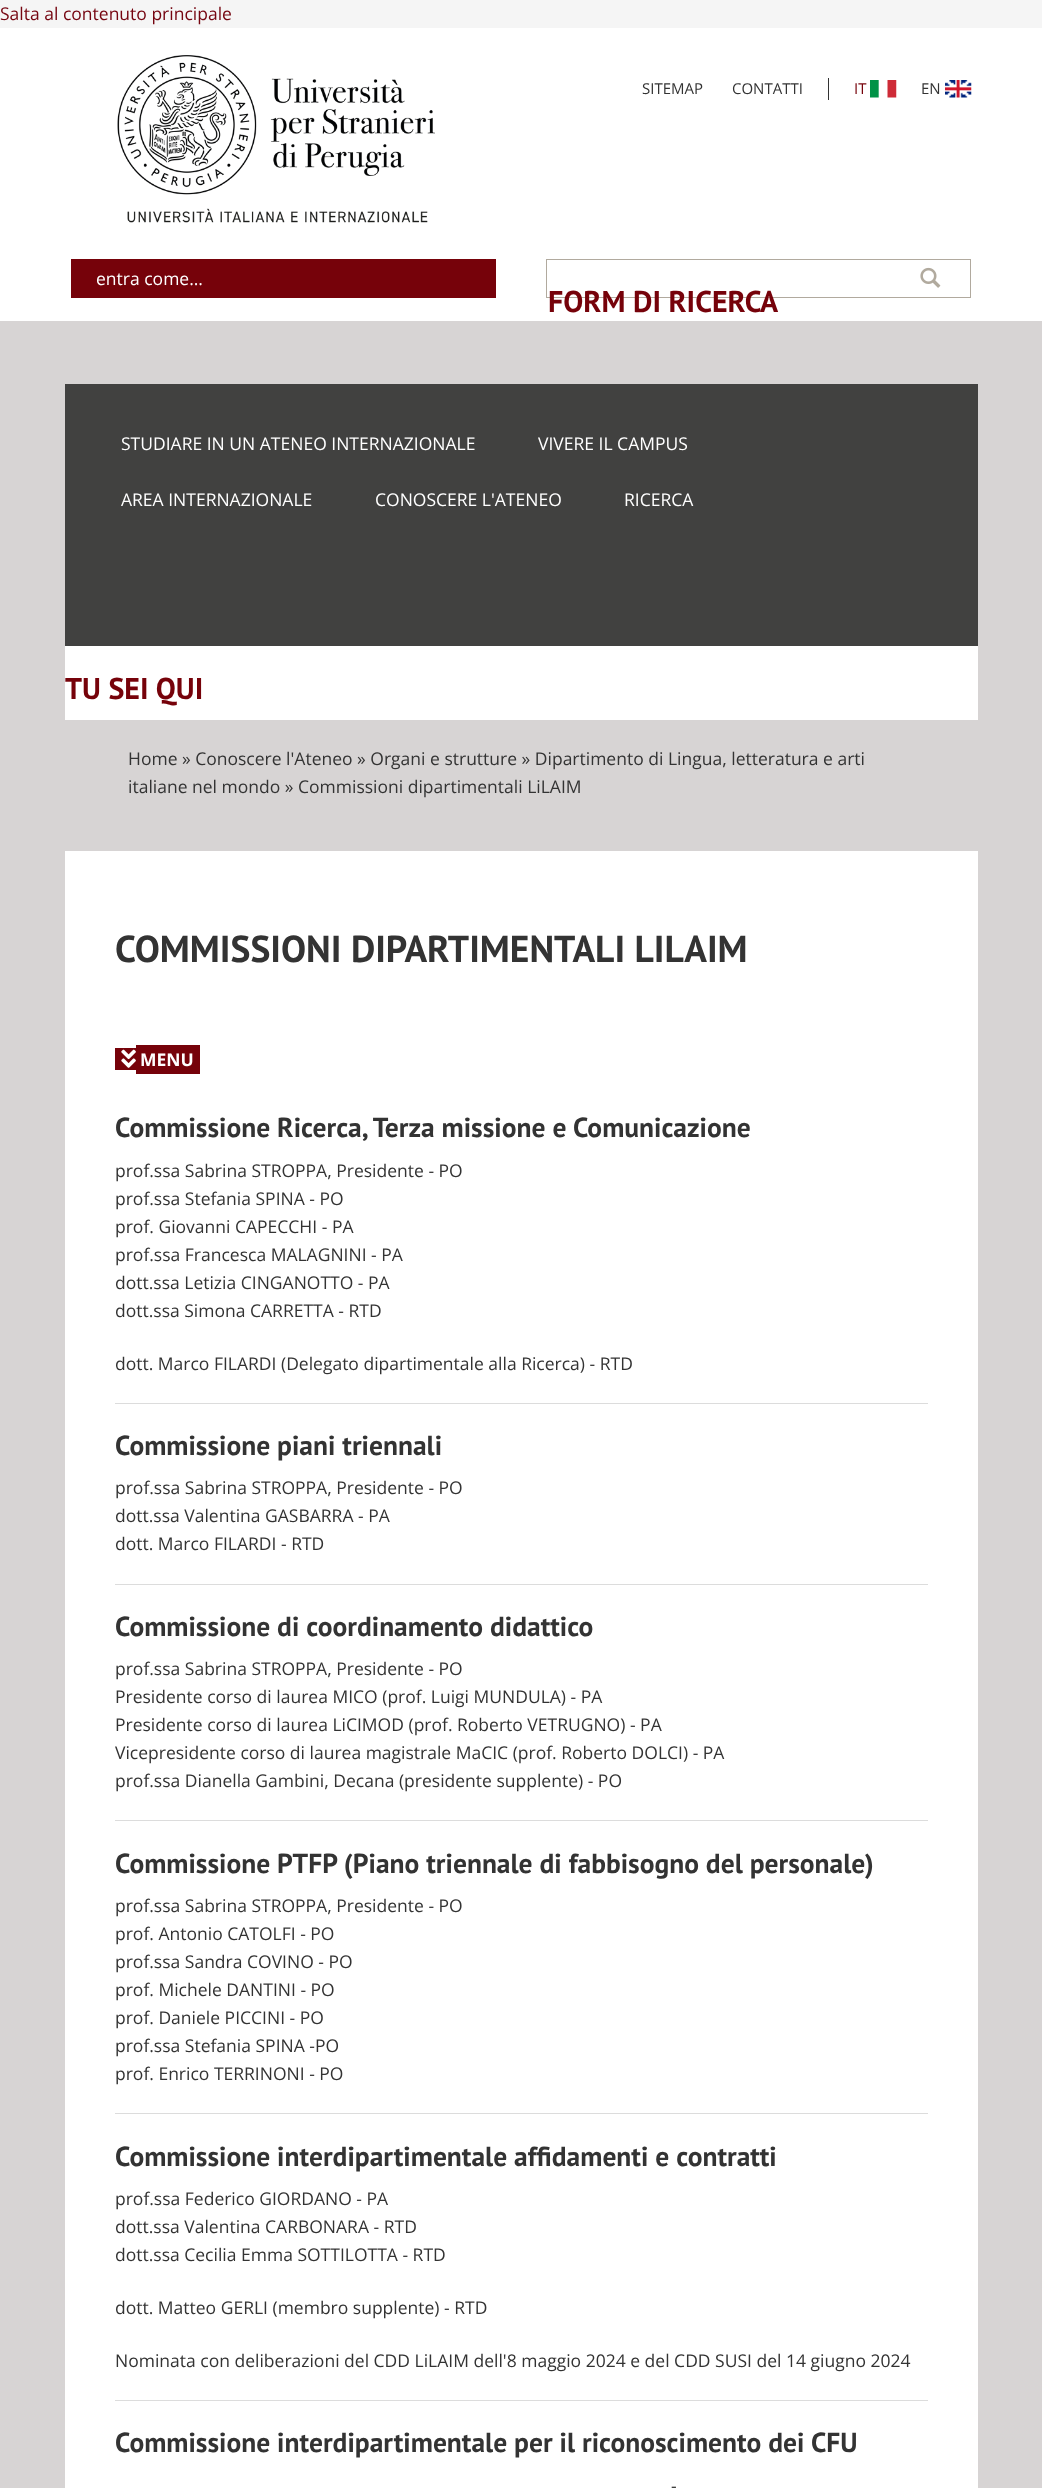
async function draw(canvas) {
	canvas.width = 1042;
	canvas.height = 2488;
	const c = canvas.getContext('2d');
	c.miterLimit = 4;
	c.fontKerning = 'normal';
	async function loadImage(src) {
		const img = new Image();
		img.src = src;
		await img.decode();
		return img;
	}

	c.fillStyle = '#f5f5f5';
	c.fillRect(0, 0, 1042, 2488);
	c.font = '17.5px Open Sans';
	c.fillStyle = '#750510';
	c.fillText('Salta al contenuto principale', 0, 20);
	c.fillStyle = '#fff';
	c.fillRect(0, 28, 1042, 293);
	c.drawImage(await loadImage('img1.png'), 117, 55, 318, 168);
	c.fillStyle = '#333';
	c.fillRect(828, 78, 1, 22);
	c.font = '15px Open Sans';
	c.fillText('SITEMAP', 642, 94);
	c.fillText('CONTATTI', 732, 94);
	c.fillStyle = '#76020a';
	c.fillText('IT', 854, 94);
	c.drawImage(await loadImage('img2.png'), 870, 80, 27, 18);
	c.fillStyle = '#333';
	c.fillText('EN', 921, 94);
	c.drawImage(await loadImage('img3.png'), 945, 80, 27, 18);
	c.fillStyle = '#76020a';
	c.fillRect(71, 259, 425, 39);
	c.font = '17.5px Open Sans';
	c.fillStyle = '#fff';
	c.fillText('entra come...', 96, 285);
	c.strokeStyle = '#b1aa9e';
	c.strokeRect(546.5, 259.5, 424, 38);
	c.drawImage(await loadImage('img4.png'), 920, 267, 21, 21);
	c.font = 'bold 30px PT Sans';
	c.fillStyle = '#76020a';
	c.fillText('FORM DI RICERCA', 548, 312);
	c.fillStyle = '#d7d4d4';
	c.fillRect(0, 321, 1042, 2167);
	c.fillStyle = '#414140';
	c.fillRect(65, 384, 913, 262);
	c.font = '17.5px Open Sans';
	c.fillStyle = '#fff';
	for (const [text, x, y] of [
		['STUDIARE IN UN ATENEO INTERNAZIONALE', 121, 450],
		['VIVERE IL CAMPUS', 538, 450],
		['AREA INTERNAZIONALE', 121, 506],
		['CONOSCERE L\'ATENEO', 375, 506],
		['RICERCA', 624, 506],
	]) {
		c.fillText(text, x, y);
	}
	c.fillRect(65, 646, 913, 1842);
	c.font = 'bold 30px PT Sans';
	c.fillStyle = '#76020a';
	c.fillText('TU SEI QUI', 65, 699);
	c.fillStyle = '#d7d4d4';
	c.fillRect(65, 720, 913, 131);
	c.font = '17.5px Open Sans';
	c.fillStyle = '#333';
	c.fillText('Home » Conoscere l\'Ateneo » Organi e strutture » Dipartimento di Lingua, letteratura e arti', 128, 765);
	c.fillText('italiane nel mondo » Commissioni dipartimentali LiLAIM', 128, 793);
	c.font = 'bold 37.5px PT Sans';
	c.fillText('COMMISSIONI DIPARTIMENTALI LILAIM', 115, 962);
	c.fillStyle = '#76020a';
	c.fillRect(115, 1048, 21, 22);
	c.fillRect(136, 1045, 64, 29);
	c.drawImage(await loadImage('img5.png'), 121, 1049, 15, 19);
	c.font = 'bold 17.5px Open Sans';
	c.fillStyle = '#fff';
	c.fillText('MENU', 140, 1066);
	c.font = 'bold 27.5px PT Sans';
	c.fillStyle = '#333';
	c.fillText('Commissione Ricerca, Terza missione e Comunicazione', 115, 1137);
	c.font = '17.5px Open Sans';
	for (const [text, x, y] of [
		['prof.ssa Sabrina STROPPA, Presidente - PO', 115, 1177],
		['prof.ssa Stefania SPINA - PO', 115, 1205],
		['prof. Giovanni CAPECCHI - PA', 115, 1233],
		['prof.ssa Francesca MALAGNINI - PA', 115, 1261],
		['dott.ssa Letizia CINGANOTTO - PA', 115, 1289],
		['dott.ssa Simona CARRETTA - RTD', 115, 1317],
		['dott. Marco FILARDI (Delegato dipartimentale alla Ricerca) - RTD', 115, 1370],
	]) {
		c.fillText(text, x, y);
	}
	c.fillStyle = '#dcdcdc';
	c.fillRect(115, 1403, 813, 1);
	c.font = 'bold 27.5px PT Sans';
	c.fillStyle = '#333';
	c.fillText('Commissione piani triennali', 115, 1455);
	c.font = '17.5px Open Sans';
	for (const [text, x, y] of [
		['prof.ssa Sabrina STROPPA, Presidente - PO', 115, 1494],
		['dott.ssa Valentina GASBARRA - PA', 115, 1522],
		['dott. Marco FILARDI - RTD', 115, 1550],
	]) {
		c.fillText(text, x, y);
	}
	c.fillStyle = '#dcdcdc';
	c.fillRect(115, 1584, 813, 1);
	c.font = 'bold 27.5px PT Sans';
	c.fillStyle = '#333';
	c.fillText('Commissione di coordinamento didattico', 115, 1636);
	c.font = '17.5px Open Sans';
	for (const [text, x, y] of [
		['prof.ssa Sabrina STROPPA, Presidente - PO', 115, 1675],
		['Presidente corso di laurea MICO (prof. Luigi MUNDULA) - PA', 115, 1703],
		['Presidente corso di laurea LiCIMOD (prof. Roberto VETRUGNO) - PA', 115, 1731],
		['Vicepresidente corso di laurea magistrale MaCIC (prof. Roberto DOLCI) - PA', 115, 1759],
		['prof.ssa Dianella Gambini, Decana (presidente supplente) - PO', 115, 1787],
	]) {
		c.fillText(text, x, y);
	}
	c.fillStyle = '#dcdcdc';
	c.fillRect(115, 1820, 813, 1);
	c.font = 'bold 27.5px PT Sans';
	c.fillStyle = '#333';
	c.fillText('Commissione PTFP (Piano triennale di fabbisogno del personale)', 115, 1873);
	c.font = '17.5px Open Sans';
	for (const [text, x, y] of [
		['prof.ssa Sabrina STROPPA, Presidente - PO', 115, 1912],
		['prof. Antonio CATOLFI - PO', 115, 1940],
		['prof.ssa Sandra COVINO - PO', 115, 1968],
		['prof. Michele DANTINI - PO', 115, 1996],
		['prof. Daniele PICCINI - PO', 115, 2024],
		['prof.ssa Stefania SPINA -PO', 115, 2052],
		['prof. Enrico TERRINONI - PO', 115, 2080],
	]) {
		c.fillText(text, x, y);
	}
	c.fillStyle = '#dcdcdc';
	c.fillRect(115, 2113, 813, 1);
	c.font = 'bold 27.5px PT Sans';
	c.fillStyle = '#333';
	c.fillText('Commissione interdipartimentale affidamenti e contratti', 115, 2166);
	c.font = '17.5px Open Sans';
	for (const [text, x, y] of [
		['prof.ssa Federico GIORDANO - PA', 115, 2205],
		['dott.ssa Valentina CARBONARA - RTD', 115, 2233],
		['dott.ssa Cecilia Emma SOTTILOTTA - RTD', 115, 2261],
		['dott. Matteo GERLI (membro supplente) - RTD', 115, 2314],
		['Nominata con deliberazioni del CDD LiLAIM dell\'8 maggio 2024 e del CDD SUSI del 14 giugno 2024', 115, 2367],
	]) {
		c.fillText(text, x, y);
	}
	c.fillStyle = '#dcdcdc';
	c.fillRect(115, 2400, 813, 1);
	c.font = 'bold 27.5px PT Sans';
	c.fillStyle = '#333';
	c.fillText('Commissione interdipartimentale per il riconoscimento dei CFU', 115, 2452);
	c.font = '17.5px Open Sans';
	c.fillText('-', 671, 2492);
}

draw(document.querySelector('canvas'));
